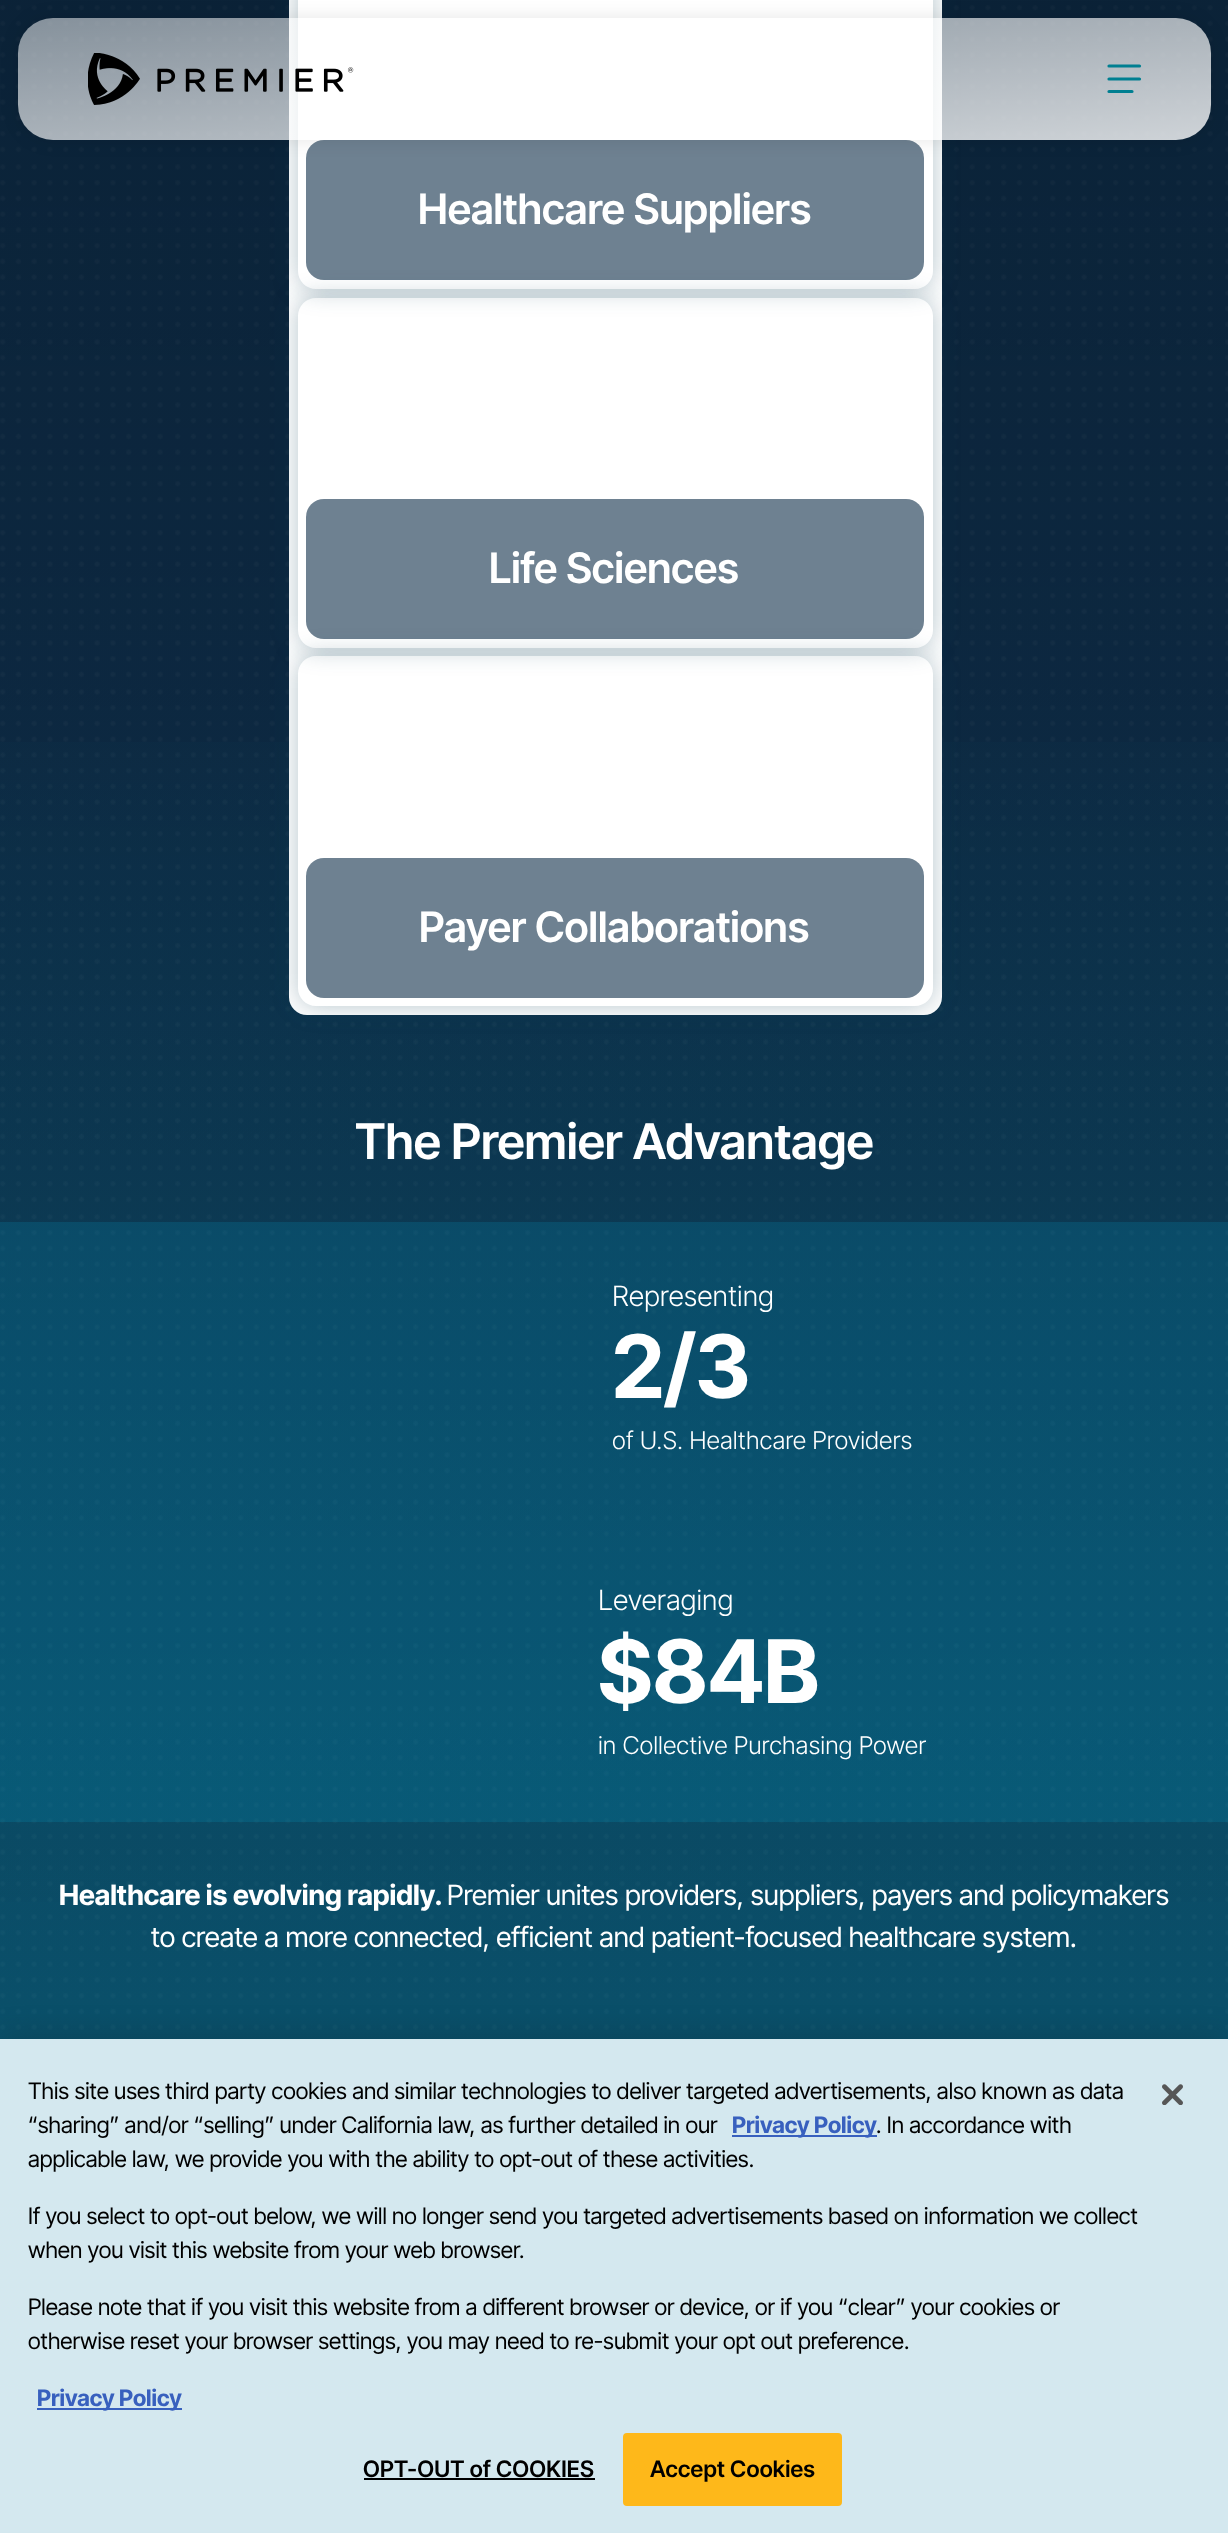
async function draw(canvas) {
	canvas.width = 1228;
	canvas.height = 2533;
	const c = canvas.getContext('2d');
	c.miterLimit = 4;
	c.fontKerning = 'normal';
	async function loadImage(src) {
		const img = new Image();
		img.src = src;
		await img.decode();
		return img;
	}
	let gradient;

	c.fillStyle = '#fff';
	c.fillRect(0, 0, 1228, 2533);
	gradient = c.createLinearGradient(614, -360, 614, 2086);
	gradient.addColorStop(0, '#103454');
	gradient.addColorStop(1, '#103251');
	c.fillStyle = gradient;
	c.fillRect(0, 0, 1228, 2039);
	c.drawImage(await loadImage('img2.png'), 0, 5, 1228, 2025);
	gradient = c.createLinearGradient(614, -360, 614, 2086);
	gradient.addColorStop(0, '#00000066');
	gradient.addColorStop(1, '#00000000');
	c.fillStyle = gradient;
	c.fillRect(0, 0, 1228, 1902);
	gradient = c.createLinearGradient(614, -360, 614, 2086);
	gradient.addColorStop(0.41, '#007f9100');
	gradient.addColorStop(1, '#007f9166');
	c.fillStyle = gradient;
	c.fillRect(0, 742, 1228, 1297);
	c.fillStyle = '#fff';
	c.beginPath();
	c.roundRect(289, -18, 653, 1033, 18);
	c.fill();
	c.save();
	c.beginPath();
	c.moveTo(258, 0);
	c.lineTo(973, 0);
	c.lineTo(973, 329);
	c.lineTo(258, 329);
	c.closePath();
	c.moveTo(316, -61);
	c.lineTo(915, -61);
	c.bezierCurveTo(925, -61, 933, -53, 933, -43);
	c.lineTo(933, 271);
	c.bezierCurveTo(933, 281, 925, 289, 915, 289);
	c.lineTo(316, 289);
	c.bezierCurveTo(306, 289, 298, 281, 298, 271);
	c.lineTo(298, -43);
	c.bezierCurveTo(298, -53, 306, -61, 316, -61);
	c.closePath();
	c.clip('evenodd');
	c.fillStyle = '#093c544d';
	c.filter = 'blur(13px)';
	c.beginPath();
	c.roundRect(298, -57, 635, 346, 18);
	c.fill();
	c.filter = 'none';
	c.restore();
	c.fillStyle = '#6e8191';
	c.beginPath();
	c.roundRect(306, 140, 618, 140, 18);
	c.fill();
	c.save();
	c.beginPath();
	c.moveTo(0, 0);
	c.lineTo(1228, 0);
	c.lineTo(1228, 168);
	c.lineTo(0, 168);
	c.closePath();
	c.moveTo(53, 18);
	c.lineTo(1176, 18);
	c.bezierCurveTo(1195.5, 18, 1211, 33.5, 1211, 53);
	c.lineTo(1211, 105);
	c.bezierCurveTo(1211, 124.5, 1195.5, 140, 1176, 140);
	c.lineTo(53, 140);
	c.bezierCurveTo(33.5, 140, 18, 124.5, 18, 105);
	c.lineTo(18, 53);
	c.bezierCurveTo(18, 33.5, 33.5, 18, 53, 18);
	c.closePath();
	c.clip('evenodd');
	c.fillStyle = '#0000001a';
	c.filter = 'blur(9px)';
	c.beginPath();
	c.roundRect(18, 18, 1193, 122, 35);
	c.fill();
	c.filter = 'none';
	c.restore();
	gradient = c.createLinearGradient(602, -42, 627, 200);
	gradient.addColorStop(0, '#ffffff80');
	gradient.addColorStop(1, '#ffffffcc');
	c.fillStyle = gradient;
	c.beginPath();
	c.roundRect(18, 18, 1193, 122, 35);
	c.fill();
	c.drawImage(await loadImage('img1.png'), 88, 53, 266, 52);
	c.beginPath();
	c.moveTo(1109, 79);
	c.lineTo(1139.5, 79);
	c.moveTo(1109, 66);
	c.lineTo(1139.5, 66);
	c.moveTo(1109, 91.5);
	c.lineTo(1132, 91.5);
	c.strokeStyle = '#007f91';
	c.lineWidth = 3.2;
	c.lineCap = 'round';
	c.stroke();
	c.font = '600 42px Inter Tight';
	c.fillStyle = '#fff';
	c.fillText('Healthcare Suppliers', 418, 224);
	c.save();
	c.beginPath();
	c.moveTo(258, 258);
	c.lineTo(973, 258);
	c.lineTo(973, 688);
	c.lineTo(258, 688);
	c.closePath();
	c.moveTo(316, 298);
	c.lineTo(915, 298);
	c.bezierCurveTo(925, 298, 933, 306, 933, 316);
	c.lineTo(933, 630);
	c.bezierCurveTo(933, 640, 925, 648, 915, 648);
	c.lineTo(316, 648);
	c.bezierCurveTo(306, 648, 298, 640, 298, 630);
	c.lineTo(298, 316);
	c.bezierCurveTo(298, 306, 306, 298, 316, 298);
	c.closePath();
	c.clip('evenodd');
	c.fillStyle = '#093c544d';
	c.filter = 'blur(13px)';
	c.beginPath();
	c.roundRect(298, 298, 635, 350, 18);
	c.fill();
	c.filter = 'none';
	c.restore();
	c.fillStyle = '#6e8191';
	c.beginPath();
	c.roundRect(306, 499, 618, 140, 18);
	c.fill();
	c.fillStyle = '#fff';
	c.fillText('Life Sciences', 489, 583);
	c.save();
	c.beginPath();
	c.moveTo(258, 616);
	c.lineTo(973, 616);
	c.lineTo(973, 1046);
	c.lineTo(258, 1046);
	c.closePath();
	c.moveTo(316, 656);
	c.lineTo(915, 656);
	c.bezierCurveTo(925, 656, 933, 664, 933, 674);
	c.lineTo(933, 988);
	c.bezierCurveTo(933, 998, 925, 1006, 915, 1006);
	c.lineTo(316, 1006);
	c.bezierCurveTo(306, 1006, 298, 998, 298, 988);
	c.lineTo(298, 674);
	c.bezierCurveTo(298, 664, 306, 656, 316, 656);
	c.closePath();
	c.clip('evenodd');
	c.fillStyle = '#093c544d';
	c.filter = 'blur(13px)';
	c.beginPath();
	c.roundRect(298, 656, 635, 350, 18);
	c.fill();
	c.filter = 'none';
	c.restore();
	c.fillStyle = '#6e8191';
	c.beginPath();
	c.roundRect(306, 858, 618, 140, 18);
	c.fill();
	c.fillStyle = '#fff';
	c.fillText('Payer Collaborations', 419, 942);
	c.font = '600 49px Inter Tight';
	c.fillText('The Premier Advantage', 355, 1159);
	c.fillStyle = '#00b2e326';
	c.fillRect(0, 1222, 1228, 600);
	c.font = '300 28px Inter Tight';
	c.fillStyle = '#fff';
	c.fillText('Representing', 612, 1306);
	c.font = 'bold 87.5px Inter Tight';
	c.fillText('2/3', 612, 1398);
	c.font = '300 24.5px Inter Tight';
	c.fillText('of U.S. Healthcare Providers', 612, 1449);
	c.font = '300 28px Inter Tight';
	c.fillText('Leveraging', 598, 1610);
	c.font = 'bold 87.5px Inter Tight';
	c.fillText('$84B', 598, 1703);
	c.font = '300 24.5px Inter Tight';
	c.fillText('in Collective Purchasing Power', 598, 1754);
	c.font = 'bold 28px Inter Tight';
	c.fillText('Healthcare is evolving rapidly.', 59, 1905);
	c.font = '28px Inter Tight';
	c.fillText('Premier unites providers, suppliers, payers and policymakers', 447, 1905);
	c.fillText('to create a more connected, efficient and patient-focused healthcare system.', 151, 1947);
	c.fillStyle = '#00000033';
	c.filter = 'blur(16px)';
	c.beginPath();
	c.rect(0, 2039, 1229, 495);
	c.fill();
	c.filter = 'none';
	c.fillStyle = '#d4e8ef';
	c.fillRect(0, 2039, 1228, 494);
	c.font = '22.75px Inter Tight';
	c.fillStyle = '#000';
	c.fillText('This site uses third party cookies and similar technologies to deliver targeted advertisements, also known as data', 28, 2099);
	c.fillText('“sharing” and/or “selling” under California law, as further detailed in our', 28, 2133);
	c.fillStyle = '#3860be';
	c.fillRect(732, 2135, 145, 2);
	c.font = 'bold 22.75px Inter Tight';
	c.fillText('Privacy Policy', 732, 2133);
	c.font = '22.75px Inter Tight';
	c.fillStyle = '#000';
	for (const [text, x, y] of [
		['. In accordance with', 876, 2133],
		['applicable law, we provide you with the ability to opt-out of these activities.', 28, 2167],
		['If you select to opt-out below, we will no longer send you targeted advertisements based on information we collect', 28, 2224],
		['when you visit this website from your web browser.', 28, 2258],
		['Please note that if you visit this website from a different browser or device, or if you “clear” your cookies or', 28, 2315],
		['otherwise reset your browser settings, you may need to re-submit your opt out preference.', 28, 2349],
	]) {
		c.fillText(text, x, y);
	}
	c.fillStyle = '#3860be';
	c.fillRect(37, 2408, 145, 2);
	c.font = 'bold 22.75px Inter Tight';
	c.fillText('Privacy Policy', 37, 2406);
	c.letterSpacing = '0.25px';
	c.font = '600 22.75px Inter Tight';
	c.fillStyle = '#000';
	c.fillText('OPT-OUT of COOKIES', 363, 2477);
	c.fillRect(364, 2478, 231, 2);
	c.fillStyle = '#feb81a';
	c.beginPath();
	c.roundRect(624, 2434, 217, 71, 3);
	c.fill();
	c.strokeStyle = '#feb81a';
	c.lineWidth = 2;
	c.stroke();
	c.fillStyle = '#000';
	c.fillText('Accept Cookies', 650, 2477);
	c.drawImage(await loadImage('img3.png'), 1162, 2084, 21, 21);
}

draw(document.querySelector('canvas'));
